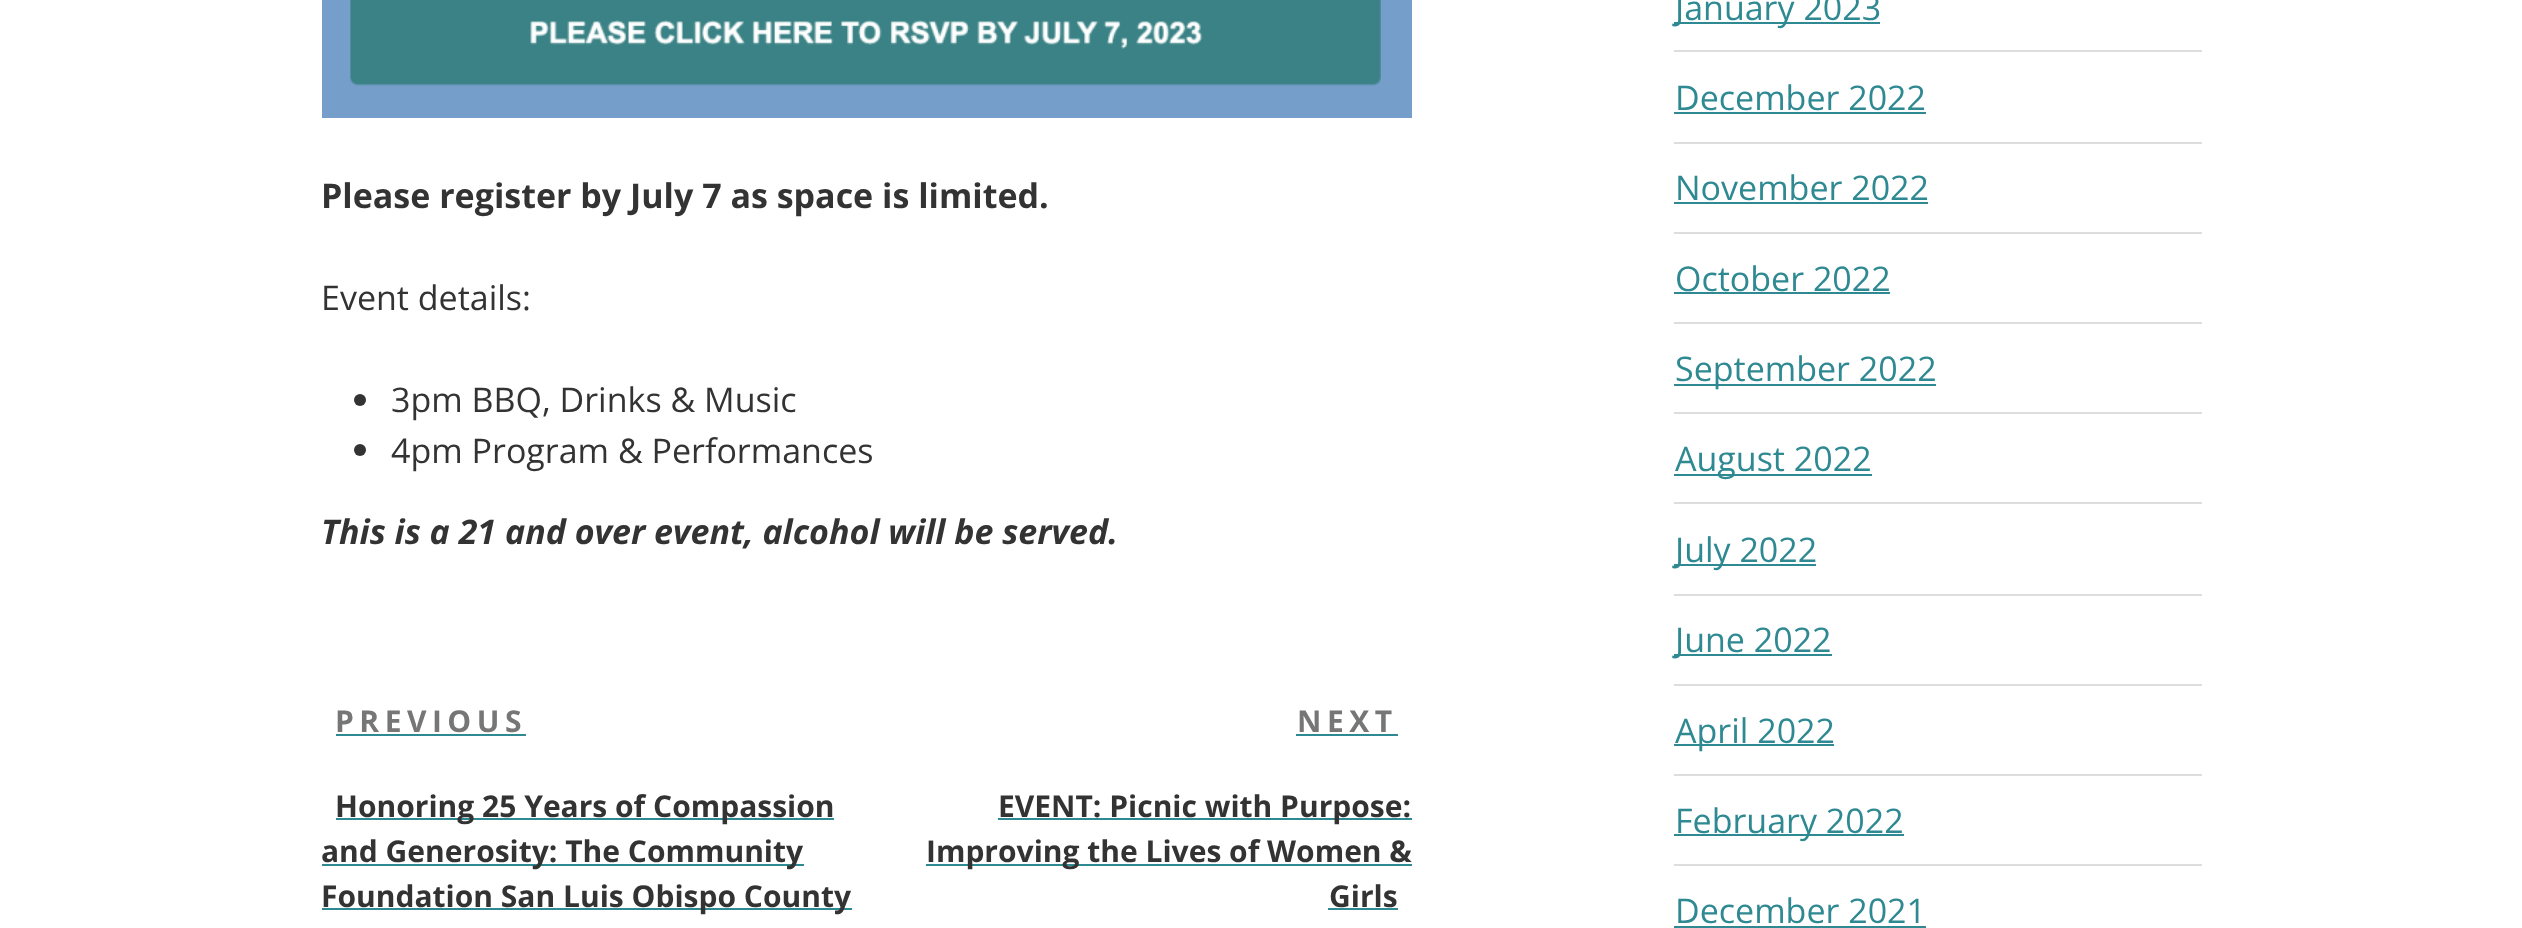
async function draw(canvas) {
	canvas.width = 2522;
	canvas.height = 928;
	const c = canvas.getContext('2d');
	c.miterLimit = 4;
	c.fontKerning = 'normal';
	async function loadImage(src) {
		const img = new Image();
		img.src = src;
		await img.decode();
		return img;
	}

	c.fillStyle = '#fff';
	c.fillRect(0, 0, 2522, 928);
	c.drawImage(await loadImage('img1.png'), 322, 0, 1090, 118);
	c.font = 'bold 34px Open Sans';
	c.fillStyle = '#333';
	c.fillText('Please register by July 7 as space is limited.', 321, 208);
	c.font = '34px Open Sans';
	c.fillText('Event details:', 321, 310);
	c.beginPath();
	c.arc(360, 400, 6, 0, 2 * Math.PI);
	c.fill();
	c.fillText('3pm BBQ, Drinks & Music', 391, 412);
	c.beginPath();
	c.arc(360, 450, 6, 0, 2 * Math.PI);
	c.fill();
	c.fillText('4pm Program & Performances', 391, 463);
	c.font = 'italic bold 34px Open Sans';
	c.fillText('This is a 21 and over event, alcohol will be served.', 321, 544);
	c.letterSpacing = '5.5px';
	c.font = 'bold 30px Open Sans';
	c.fillStyle = '#767676';
	c.fillText('PREVIOUS', 335, 732);
	c.fillStyle = '#2f8992';
	c.fillRect(336, 734, 190, 2);
	c.fillRect(336, 818, 498, 2);
	c.letterSpacing = '0px';
	c.fillStyle = '#333';
	c.fillText('Honoring 25 Years of Compassion', 335, 817);
	c.fillStyle = '#2f8992';
	c.fillRect(322, 864, 482, 2);
	c.fillStyle = '#333';
	c.fillText('and Generosity: The Community', 321, 862);
	c.fillStyle = '#2f8992';
	c.fillRect(322, 908, 530, 2);
	c.fillStyle = '#333';
	c.fillText('Foundation San Luis Obispo County', 321, 907);
	c.letterSpacing = '5.5px';
	c.fillStyle = '#767676';
	c.fillText('NEXT', 1297, 732);
	c.fillStyle = '#2f8992';
	c.fillRect(1296, 734, 102, 2);
	c.fillRect(998, 818, 414, 2);
	c.letterSpacing = '0px';
	c.fillStyle = '#333';
	c.fillText('EVENT: Picnic with Purpose:', 998, 817);
	c.fillStyle = '#2f8992';
	c.fillRect(926, 864, 486, 2);
	c.fillStyle = '#333';
	c.fillText('Improving the Lives of Women &', 926, 862);
	c.fillText('Girls', 1329, 907);
	for (const [x, y, w, h, color] of [
		[1328, 908, 70, 2, '#2f8992'],
		[1674, 50, 528, 2, '#ddd'],
		[1674, 22, 206, 2, '#2f8992'],
	]) {
		c.fillStyle = color;
		c.fillRect(x, y, w, h);
	}
	c.font = '34px Open Sans';
	c.fillText('January 2023', 1675, 20);
	c.fillStyle = '#ddd';
	c.fillRect(1674, 142, 528, 2);
	c.fillStyle = '#2f8992';
	c.fillText('December 2022', 1675, 110);
	c.fillRect(1674, 112, 252, 2);
	c.fillStyle = '#ddd';
	c.fillRect(1674, 232, 528, 2);
	c.fillStyle = '#2f8992';
	c.fillText('November 2022', 1675, 200);
	c.fillRect(1674, 202, 254, 2);
	c.fillStyle = '#ddd';
	c.fillRect(1674, 322, 528, 2);
	c.fillStyle = '#2f8992';
	c.fillText('October 2022', 1675, 291);
	for (const [x, y, w, h, color] of [
		[1674, 292, 216, 2, '#2f8992'],
		[1674, 412, 528, 2, '#ddd'],
		[1674, 384, 262, 2, '#2f8992'],
	]) {
		c.fillStyle = color;
		c.fillRect(x, y, w, h);
	}
	c.fillText('September 2022', 1675, 381);
	c.fillStyle = '#ddd';
	c.fillRect(1674, 502, 528, 2);
	c.fillStyle = '#2f8992';
	c.fillRect(1674, 474, 198, 2);
	c.fillText('August 2022', 1675, 471);
	c.fillStyle = '#ddd';
	c.fillRect(1674, 594, 528, 2);
	c.fillStyle = '#2f8992';
	c.fillRect(1674, 564, 142, 2);
	c.fillText('July 2022', 1675, 562);
	c.fillStyle = '#ddd';
	c.fillRect(1674, 684, 528, 2);
	c.fillStyle = '#2f8992';
	c.fillRect(1674, 654, 158, 2);
	c.fillText('June 2022', 1675, 652);
	c.fillStyle = '#ddd';
	c.fillRect(1674, 774, 528, 2);
	c.fillStyle = '#2f8992';
	c.fillRect(1674, 744, 160, 2);
	c.fillText('April 2022', 1675, 743);
	c.fillStyle = '#ddd';
	c.fillRect(1674, 864, 528, 2);
	c.fillStyle = '#2f8992';
	c.fillRect(1674, 834, 230, 2);
	c.fillText('February 2022', 1675, 833);
	c.fillText('December 2021', 1675, 923);
	c.fillRect(1674, 926, 252, 2);
}

draw(document.querySelector('canvas'));
